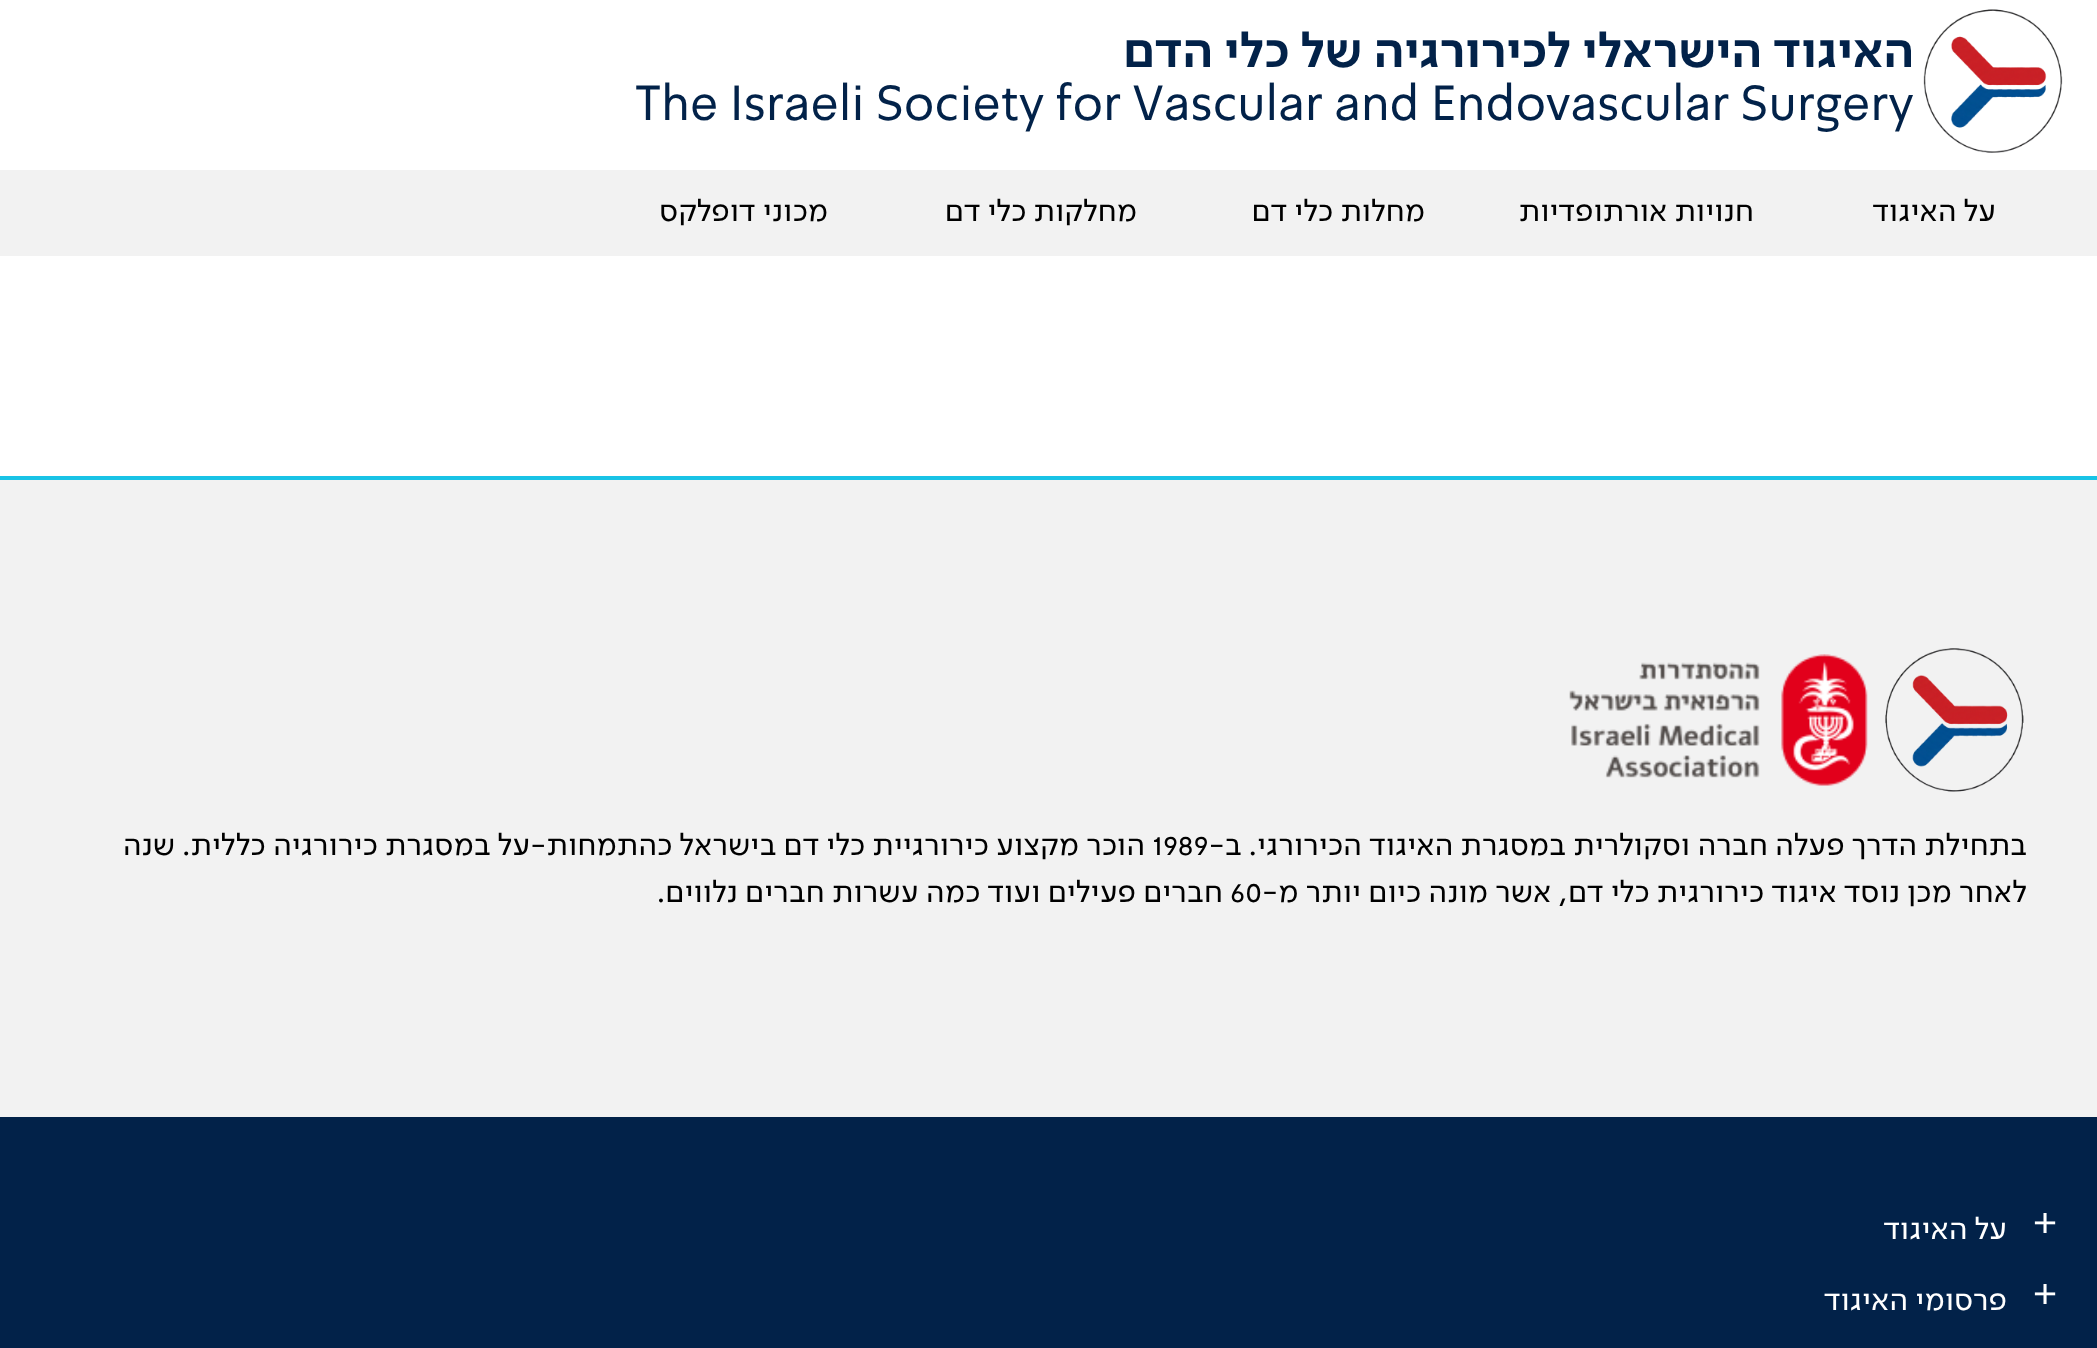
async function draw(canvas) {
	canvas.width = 2097;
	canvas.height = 1348;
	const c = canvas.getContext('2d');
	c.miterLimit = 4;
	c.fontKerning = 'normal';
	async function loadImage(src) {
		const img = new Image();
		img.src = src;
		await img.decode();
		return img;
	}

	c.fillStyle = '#fff';
	c.fillRect(0, 0, 2097, 1348);
	c.drawImage(await loadImage('img1.png'), 1923, 9, 140, 144);
	c.direction = 'rtl';
	c.font = 'bold 49.65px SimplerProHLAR';
	c.fillStyle = '#022249';
	c.fillText('האיגוד הישראלי לכירורגיה של כלי הדם', 1914, 67);
	c.direction = 'ltr';
	c.font = '49.65px SimplerProHLAR';
	c.fillText('The Israeli Society for Vascular and Endovascular Surgery', 635, 120);
	c.fillStyle = '#f2f2f2';
	c.fillRect(0, 170, 2097, 86);
	c.direction = 'rtl';
	c.font = '31.5px SimplerProHLAR';
	c.fillStyle = '#000';
	for (const [text, x, y] of [
		['על האיגוד', 1996, 221],
		['חנויות אורתופדיות', 1754, 221],
		['מחלות כלי דם', 1425, 221],
		['מחלקות כלי דם', 1137, 221],
		['מכוני דופלקס', 828, 221],
	]) {
		c.fillText(text, x, y);
	}
	c.fillStyle = '#f2f2f2';
	c.fillRect(0, 480, 2097, 637);
	c.fillStyle = '#19c3e6';
	c.fillRect(0, 476, 2097, 4);
	c.drawImage(await loadImage('img2.png'), 1885, 648, 139, 144);
	c.drawImage(await loadImage('img3.png'), 1569, 654, 299, 132);
	c.fillStyle = '#000';
	c.fillText('בתחילת הדרך פעלה חברה וסקולרית במסגרת האיגוד הכירורגי. ב-', 2027, 855);
	c.direction = 'ltr';
	c.fillText('1989', 1152, 855);
	c.direction = 'rtl';
	c.fillText('הוכר מקצוע כירורגיית כלי דם בישראל כהתמחות-על במסגרת כירורגיה כללית. שנה', 1145, 855);
	c.fillText('לאחר מכן נוסד איגוד כירורגית כלי דם, אשר מונה כיום יותר מ-', 2027, 902);
	c.direction = 'ltr';
	c.fillText('60', 1230, 902);
	c.direction = 'rtl';
	c.fillText('חברים פעילים ועוד כמה עשרות חברים נלווים.', 1223, 902);
	c.fillStyle = '#022249';
	c.fillRect(0, 1117, 2097, 231);
	c.direction = 'ltr';
	c.font = '39px SimplerProHLAR';
	c.fillStyle = '#fff';
	c.fillText('+', 2032, 1234);
	c.direction = 'rtl';
	c.font = '31.5px SimplerProHLAR';
	c.fillText('על האיגוד', 2007, 1239);
	c.direction = 'ltr';
	c.font = '39px SimplerProHLAR';
	c.fillText('+', 2032, 1305);
	c.direction = 'rtl';
	c.font = '31.5px SimplerProHLAR';
	c.fillText('פרסומי האיגוד', 2007, 1310);
}

draw(document.querySelector('canvas'));
